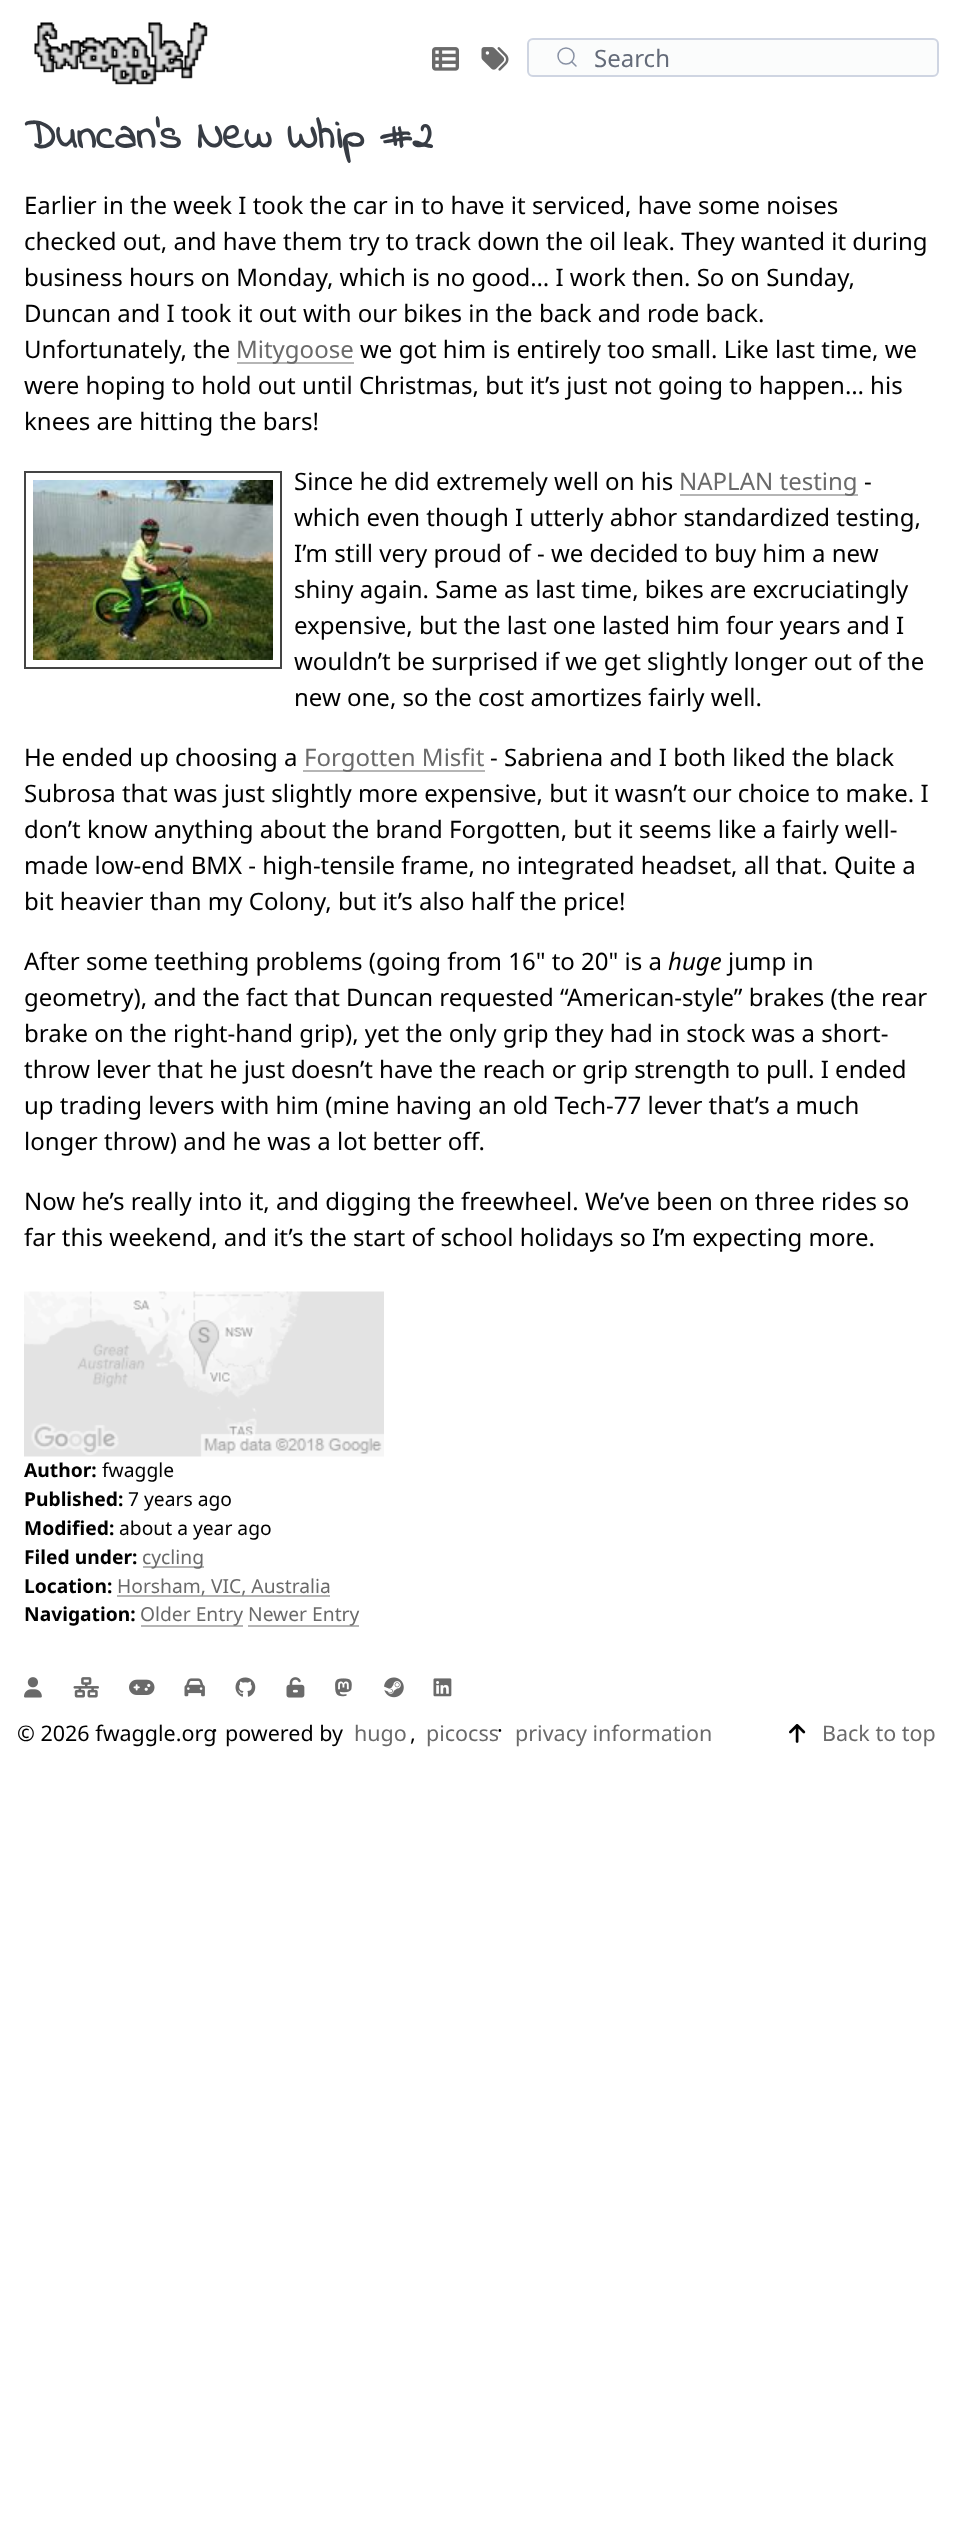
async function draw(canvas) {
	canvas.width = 954;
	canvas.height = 2538;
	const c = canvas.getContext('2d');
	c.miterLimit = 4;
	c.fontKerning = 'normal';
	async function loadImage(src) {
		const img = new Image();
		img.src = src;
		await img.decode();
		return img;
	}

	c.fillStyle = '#fff';
	c.fillRect(0, 0, 954, 2538);
	c.drawImage(await loadImage('img1.png'), 34, 22, 174, 63);
	c.drawImage(await loadImage('img2.png'), 432, 47, 27, 24);
	c.drawImage(await loadImage('img3.png'), 481, 47, 28, 24);
	c.fillStyle = '#fbfcfc';
	c.beginPath();
	c.roundRect(527, 38, 412, 39, 6);
	c.fill();
	c.beginPath();
	c.arc(566, 56, 8, 0, 2 * Math.PI);
	c.strokeStyle = '#8891a4';
	c.lineWidth = 1.5;
	c.stroke();
	c.beginPath();
	c.moveTo(576, 66);
	c.lineTo(571.5, 61.5);
	c.lineCap = 'round';
	c.lineJoin = 'round';
	c.stroke();
	c.beginPath();
	c.roundRect(528, 39, 410, 37, 5);
	c.strokeStyle = '#cfd5e2';
	c.lineWidth = 2;
	c.lineJoin = 'miter';
	c.stroke();
	c.font = '24px Noto Sans';
	c.fillStyle = '#646b79';
	c.fillText('Search', 594, 67);
	c.font = 'bold 42px Indie Flower';
	c.fillStyle = '#373c44';
	c.fillText('Duncan’s New Whip #2', 24, 148);
	c.font = '24px Noto Sans';
	c.fillStyle = '#000';
	for (const [text, x, y] of [
		['Earlier in the week I took the car in to have it serviced, have some noises', 24, 214],
		['checked out, and have them try to track down the oil leak. They wanted it during', 24, 250],
		['business hours on Monday, which is no good… I work then. So on Sunday,', 24, 286],
		['Duncan and I took it out with our bikes in the back and rode back.', 24, 322],
		['Unfortunately, the', 24, 358],
	]) {
		c.fillText(text, x, y);
	}
	c.fillStyle = '#b5b5b5';
	c.fillRect(237, 362, 117, 2);
	c.fillStyle = '#6a6a6a';
	c.fillText('Mitygoose', 236, 358);
	c.fillStyle = '#000';
	for (const [text, x, y] of [
		['we got him is entirely too small. Like last time, we', 360, 358],
		['were hoping to hold out until Christmas, but it’s just not going to happen… his', 24, 394],
		['knees are hitting the bars!', 24, 430],
	]) {
		c.fillText(text, x, y);
	}
	c.strokeStyle = '#444';
	c.strokeRect(25, 472, 256, 196);
	c.drawImage(await loadImage('img4.png'), 33, 480, 240, 180);
	c.fillText('Since he did extremely well on his', 294, 490);
	c.fillStyle = '#b5b5b5';
	c.fillRect(680, 494, 178, 2);
	c.fillStyle = '#6a6a6a';
	c.fillText('NAPLAN testing', 679, 490);
	c.fillStyle = '#000';
	for (const [text, x, y] of [
		['-', 864, 490],
		['which even though I utterly abhor standardized testing,', 294, 526],
		['I’m still very proud of - we decided to buy him a new', 294, 562],
		['shiny again. Same as last time, bikes are excruciatingly', 294, 598],
		['expensive, but the last one lasted him four years and I', 294, 634],
		['wouldn’t be surprised if we get slightly longer out of the', 294, 670],
		['new one, so the cost amortizes fairly well.', 294, 706],
		['He ended up choosing a', 24, 766],
	]) {
		c.fillText(text, x, y);
	}
	c.fillStyle = '#b5b5b5';
	c.fillRect(303, 770, 182, 2);
	c.fillStyle = '#6a6a6a';
	c.fillText('Forgotten Misfit', 304, 766);
	c.fillStyle = '#000';
	for (const [text, x, y] of [
		['- Sabriena and I both liked the black', 490, 766],
		['Subrosa that was just slightly more expensive, but it wasn’t our choice to make. I', 24, 802],
		['don’t know anything about the brand Forgotten, but it seems like a fairly well-', 24, 838],
		['made low-end BMX - high-tensile frame, no integrated headset, all that. Quite a', 24, 874],
		['bit heavier than my Colony, but it’s also half the price!', 24, 910],
		['After some teething problems (going from 16" to 20" is a', 24, 970],
	]) {
		c.fillText(text, x, y);
	}
	c.font = 'italic 24px Noto Sans';
	c.fillText('huge', 668, 970);
	c.font = '24px Noto Sans';
	for (const [text, x, y] of [
		['jump in', 728, 970],
		['geometry), and the fact that Duncan requested “American-style” brakes (the rear', 24, 1006],
		['brake on the right-hand grip), yet the only grip they had in stock was a short-', 24, 1042],
		['throw lever that he just doesn’t have the reach or grip strength to pull. I ended', 24, 1078],
		['up trading levers with him (mine having an old Tech-77 lever that’s a much', 24, 1114],
		['longer throw) and he was a lot better off.', 24, 1150],
		['Now he’s really into it, and digging the freewheel. We’ve been on three rides so', 24, 1210],
		['far this weekend, and it’s the start of school holidays so I’m expecting more.', 24, 1246],
	]) {
		c.fillText(text, x, y);
	}
	c.drawImage(await loadImage('img5.png'), 24, 1291, 360, 166);
	c.font = 'bold 19.25px Noto Sans';
	c.fillText('Author:', 24, 1477);
	c.font = '19.25px Noto Sans';
	c.fillText('fwaggle', 102, 1477);
	c.font = 'bold 19.25px Noto Sans';
	c.fillText('Published:', 24, 1506);
	c.font = '19.25px Noto Sans';
	c.fillText('7 years ago', 128, 1506);
	c.font = 'bold 19.25px Noto Sans';
	c.fillText('Modified:', 24, 1535);
	c.font = '19.25px Noto Sans';
	c.fillText('about a year ago', 119, 1535);
	c.font = 'bold 19.25px Noto Sans';
	c.fillText('Filed under:', 24, 1564);
	c.fillStyle = '#b5b5b5';
	c.fillRect(143, 1566, 61, 2);
	c.font = '19.25px Noto Sans';
	c.fillStyle = '#6a6a6a';
	c.fillText('cycling', 142, 1564);
	c.font = 'bold 19.25px Noto Sans';
	c.fillStyle = '#000';
	c.fillText('Location:', 24, 1593);
	c.fillStyle = '#b5b5b5';
	c.fillRect(117, 1595, 213, 2);
	c.font = '19.25px Noto Sans';
	c.fillStyle = '#6a6a6a';
	c.fillText('Horsham, VIC, Australia', 117, 1593);
	c.font = 'bold 19.25px Noto Sans';
	c.fillStyle = '#000';
	c.fillText('Navigation:', 24, 1621);
	c.fillStyle = '#b5b5b5';
	c.fillRect(141, 1625, 102, 2);
	c.font = '19.25px Noto Sans';
	c.fillStyle = '#6a6a6a';
	c.fillText('Older Entry', 140, 1621);
	c.fillStyle = '#b5b5b5';
	c.fillRect(248, 1625, 111, 2);
	c.fillStyle = '#6a6a6a';
	c.fillText('Newer Entry', 248, 1621);
	c.drawImage(await loadImage('img6.png'), 24, 1677, 18, 21);
	c.drawImage(await loadImage('img7.png'), 73, 1677, 26, 21);
	c.drawImage(await loadImage('img8.png'), 129, 1679, 26, 16);
	c.drawImage(await loadImage('img9.png'), 184, 1678, 21, 19);
	c.drawImage(await loadImage('img10.png'), 235, 1677, 21, 20);
	c.drawImage(await loadImage('img11.png'), 286, 1677, 19, 21);
	c.drawImage(await loadImage('img12.png'), 335, 1678, 17, 19);
	c.drawImage(await loadImage('img13.png'), 384, 1677, 20, 21);
	c.drawImage(await loadImage('img14.png'), 433, 1678, 19, 19);
	c.font = '21.5px Noto Sans';
	c.fillStyle = '#000';
	for (const [text, x, y] of [
		['© 2026 fwaggle.org', 17, 1741],
		['·', 212, 1738],
		['powered by', 225, 1741],
	]) {
		c.fillText(text, x, y);
	}
	c.fillStyle = '#6a6a6a';
	c.fillText('hugo', 354, 1741);
	c.fillText('picocss', 426, 1741);
	c.fillStyle = '#000';
	c.fillText(',', 410, 1741);
	c.fillText('·', 497, 1738);
	c.fillStyle = '#6a6a6a';
	c.fillText('privacy information', 515, 1741);
	c.drawImage(await loadImage('img15.png'), 789, 1724, 17, 19);
	c.fillText('Back to top', 822, 1741);
}

draw(document.querySelector('canvas'));
